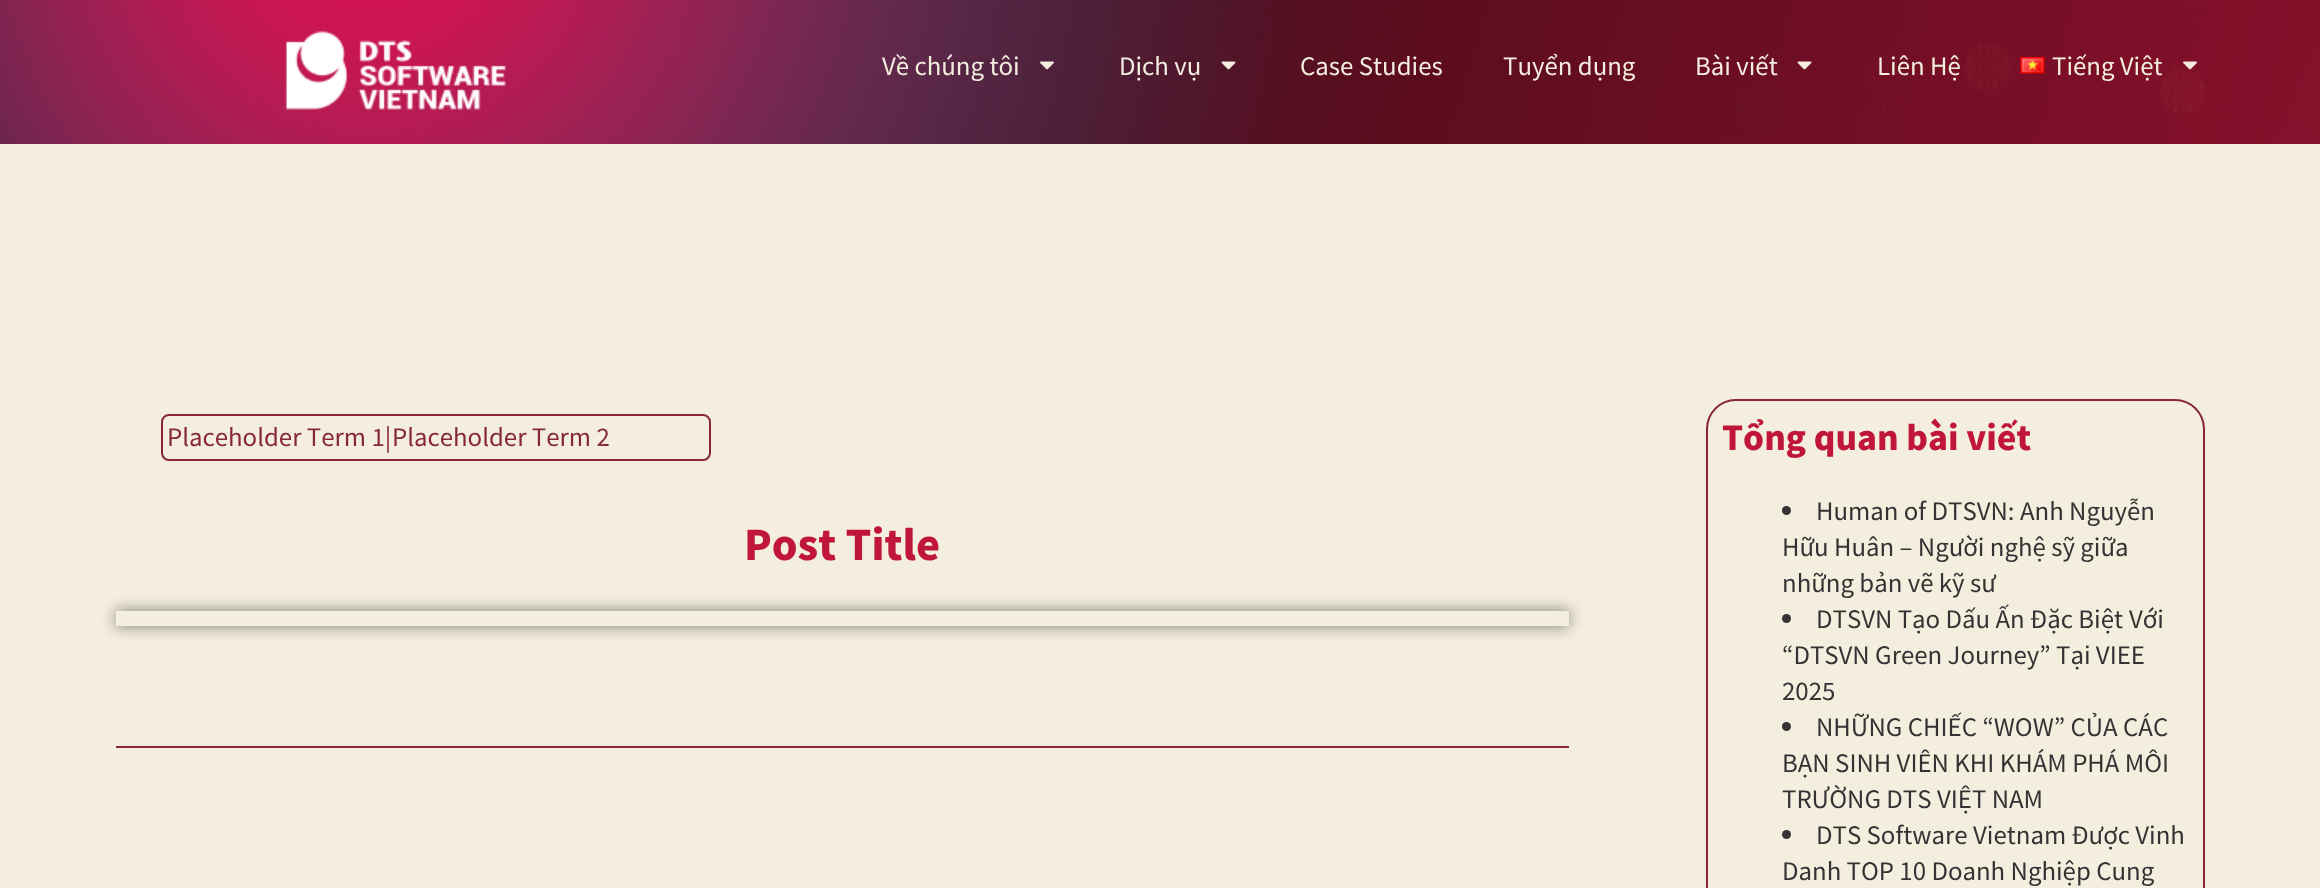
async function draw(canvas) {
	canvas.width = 2320;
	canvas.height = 888;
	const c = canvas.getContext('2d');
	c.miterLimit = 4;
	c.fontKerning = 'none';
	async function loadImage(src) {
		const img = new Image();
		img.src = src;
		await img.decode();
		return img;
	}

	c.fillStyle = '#f4eedf';
	c.fillRect(0, 0, 2320, 888);
	c.drawImage(await loadImage('img1.png'), 0, 0, 2320, 144);
	c.drawImage(await loadImage('img2.png'), 285, 31, 221, 79);
	c.font = '24px Noto Sans JP';
	c.fillText('Về chúng tôi', 882, 75);
	c.drawImage(await loadImage('img3.png'), 1040, 61, 14, 9);
	c.fillText('Dịch vụ', 1119, 75);
	c.drawImage(await loadImage('img4.png'), 1221, 61, 15, 9);
	for (const [text, x, y] of [
		['Case Studies', 1300, 75],
		['Tuyển dụng', 1503, 75],
		['Bài viết', 1695, 75],
	]) {
		c.fillText(text, x, y);
	}
	c.drawImage(await loadImage('img5.png'), 1797, 61, 15, 9);
	c.fillText('Liên Hệ', 1877, 75);
	c.drawImage(await loadImage('img6.png'), 2020, 57, 25, 17);
	c.fillText('Tiếng Việt', 2052, 75);
	c.drawImage(await loadImage('img7.png'), 2183, 61, 14, 9);
	c.beginPath();
	c.roundRect(162, 415, 548, 45, 7);
	c.strokeStyle = '#86273b';
	c.lineWidth = 2;
	c.stroke();
	c.fillStyle = '#86273b';
	c.fillText('Placeholder Term 1|', 167, 446);
	c.fillText('Placeholder Term 2', 392, 446);
	c.font = '900 40.5px Noto Sans JP';
	c.fillStyle = '#c0163c';
	c.fillText('Post Title', 744, 560);
	c.fillStyle = '#00000080';
	c.filter = 'blur(7.5px)';
	c.beginPath();
	c.rect(116, 611, 1453, 15);
	c.fill();
	c.filter = 'none';
	c.fillStyle = '#f4eedf';
	c.fillRect(116, 611, 1453, 15);
	c.fillStyle = '#86273b';
	c.fillRect(116, 746, 1453, 2);
	c.beginPath();
	c.roundRect(1707, 400, 497, 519, 29);
	c.stroke();
	c.font = '900 33px Noto Sans JP';
	c.fillStyle = '#c0163c';
	c.fillText('Tổng quan bài viết', 1722, 450);
	c.fillStyle = '#333';
	c.beginPath();
	c.arc(1786.5, 510.5, 4.5, 0, 2 * Math.PI);
	c.fill();
	c.font = '24px Noto Sans JP';
	for (const [text, x, y] of [
		['Human of DTSVN: Anh Nguyễn', 1816, 520],
		['Hữu Huân – Người nghệ sỹ giữa', 1782, 556],
		['những bản vẽ kỹ sư', 1782, 592],
	]) {
		c.fillText(text, x, y);
	}
	c.beginPath();
	c.arc(1786.5, 618.5, 4.5, 0, 2 * Math.PI);
	c.fill();
	for (const [text, x, y] of [
		['DTSVN Tạo Dấu Ấn Đặc Biệt', 1816, 628],
		['Với', 2129, 628],
		['“DTSVN Green Journey” Tại VIEE', 1782, 664],
		['2025', 1782, 700],
	]) {
		c.fillText(text, x, y);
	}
	c.beginPath();
	c.arc(1786.5, 726.5, 4.5, 0, 2 * Math.PI);
	c.fill();
	for (const [text, x, y] of [
		['NHỮNG CHIẾC “WOW” CỦA CÁC', 1816, 736],
		['BẠN SINH VIÊN KHI KHÁM PHÁ MÔI', 1782, 772],
		['TRƯỜNG DTS VIỆT NAM', 1782, 808],
	]) {
		c.fillText(text, x, y);
	}
	c.beginPath();
	c.arc(1786.5, 834.5, 4.5, 0, 2 * Math.PI);
	c.fill();
	c.fillText('DTS Software Vietnam Được Vinh', 1816, 844);
	c.fillText('Danh TOP 10 Doanh Nghiệp Cung', 1782, 880);
}

draw(document.querySelector('canvas'));
